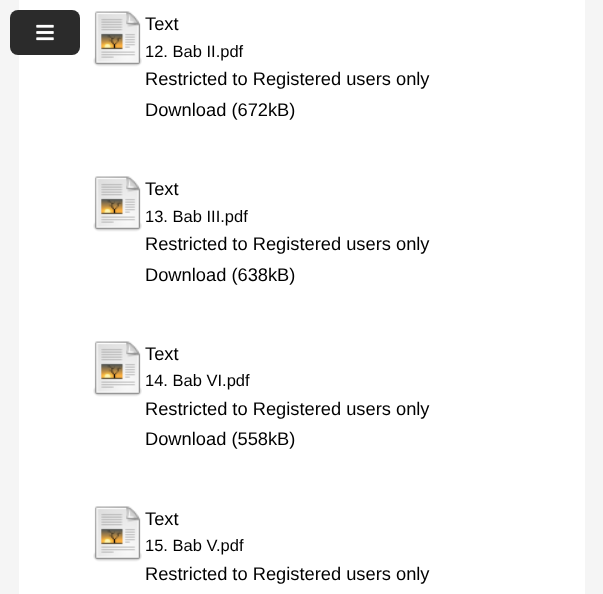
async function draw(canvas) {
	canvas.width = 603;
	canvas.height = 594;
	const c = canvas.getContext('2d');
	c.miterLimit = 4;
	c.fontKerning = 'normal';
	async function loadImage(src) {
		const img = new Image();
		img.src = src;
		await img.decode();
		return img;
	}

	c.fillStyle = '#f5f5f5';
	c.fillRect(0, 0, 603, 594);
	c.fillStyle = '#fff';
	c.fillRect(19, 0, 566, 594);
	c.fillStyle = '#2b2b2b';
	c.beginPath();
	c.roundRect(10, 10, 70, 45, 8);
	c.fill();
	c.drawImage(await loadImage('img1.png'), 36, 24, 18, 17);
	c.drawImage(await loadImage('img2.png'), 93, 11, 49, 56);
	c.font = '18.3px Liberation Sans';
	c.fillStyle = '#000';
	c.fillText('Text', 145, 30);
	c.font = '16.5px Liberation Sans';
	c.fillText('12. Bab II.pdf', 145, 57);
	c.font = '18.3px Liberation Sans';
	c.fillText('Restricted to Registered users only', 145, 85);
	c.fillText('Download (672kB)', 145, 116);
	c.drawImage(await loadImage('img2.png'), 93, 176, 49, 56);
	c.fillText('Text', 145, 195);
	c.font = '16.5px Liberation Sans';
	c.fillText('13. Bab III.pdf', 145, 222);
	c.font = '18.3px Liberation Sans';
	c.fillText('Restricted to Registered users only', 145, 250);
	c.fillText('Download (638kB)', 145, 281);
	c.drawImage(await loadImage('img2.png'), 93, 341, 49, 56);
	c.fillText('Text', 145, 360);
	c.font = '16.5px Liberation Sans';
	c.fillText('14. Bab VI.pdf', 145, 386);
	c.font = '18.3px Liberation Sans';
	c.fillText('Restricted to Registered users only', 145, 415);
	c.fillText('Download (558kB)', 145, 445);
	c.drawImage(await loadImage('img2.png'), 93, 506, 49, 56);
	c.fillText('Text', 145, 525);
	c.font = '16.5px Liberation Sans';
	c.fillText('15. Bab V.pdf', 145, 551);
	c.font = '18.3px Liberation Sans';
	c.fillText('Restricted to Registered users only', 145, 580);
}

draw(document.querySelector('canvas'));
